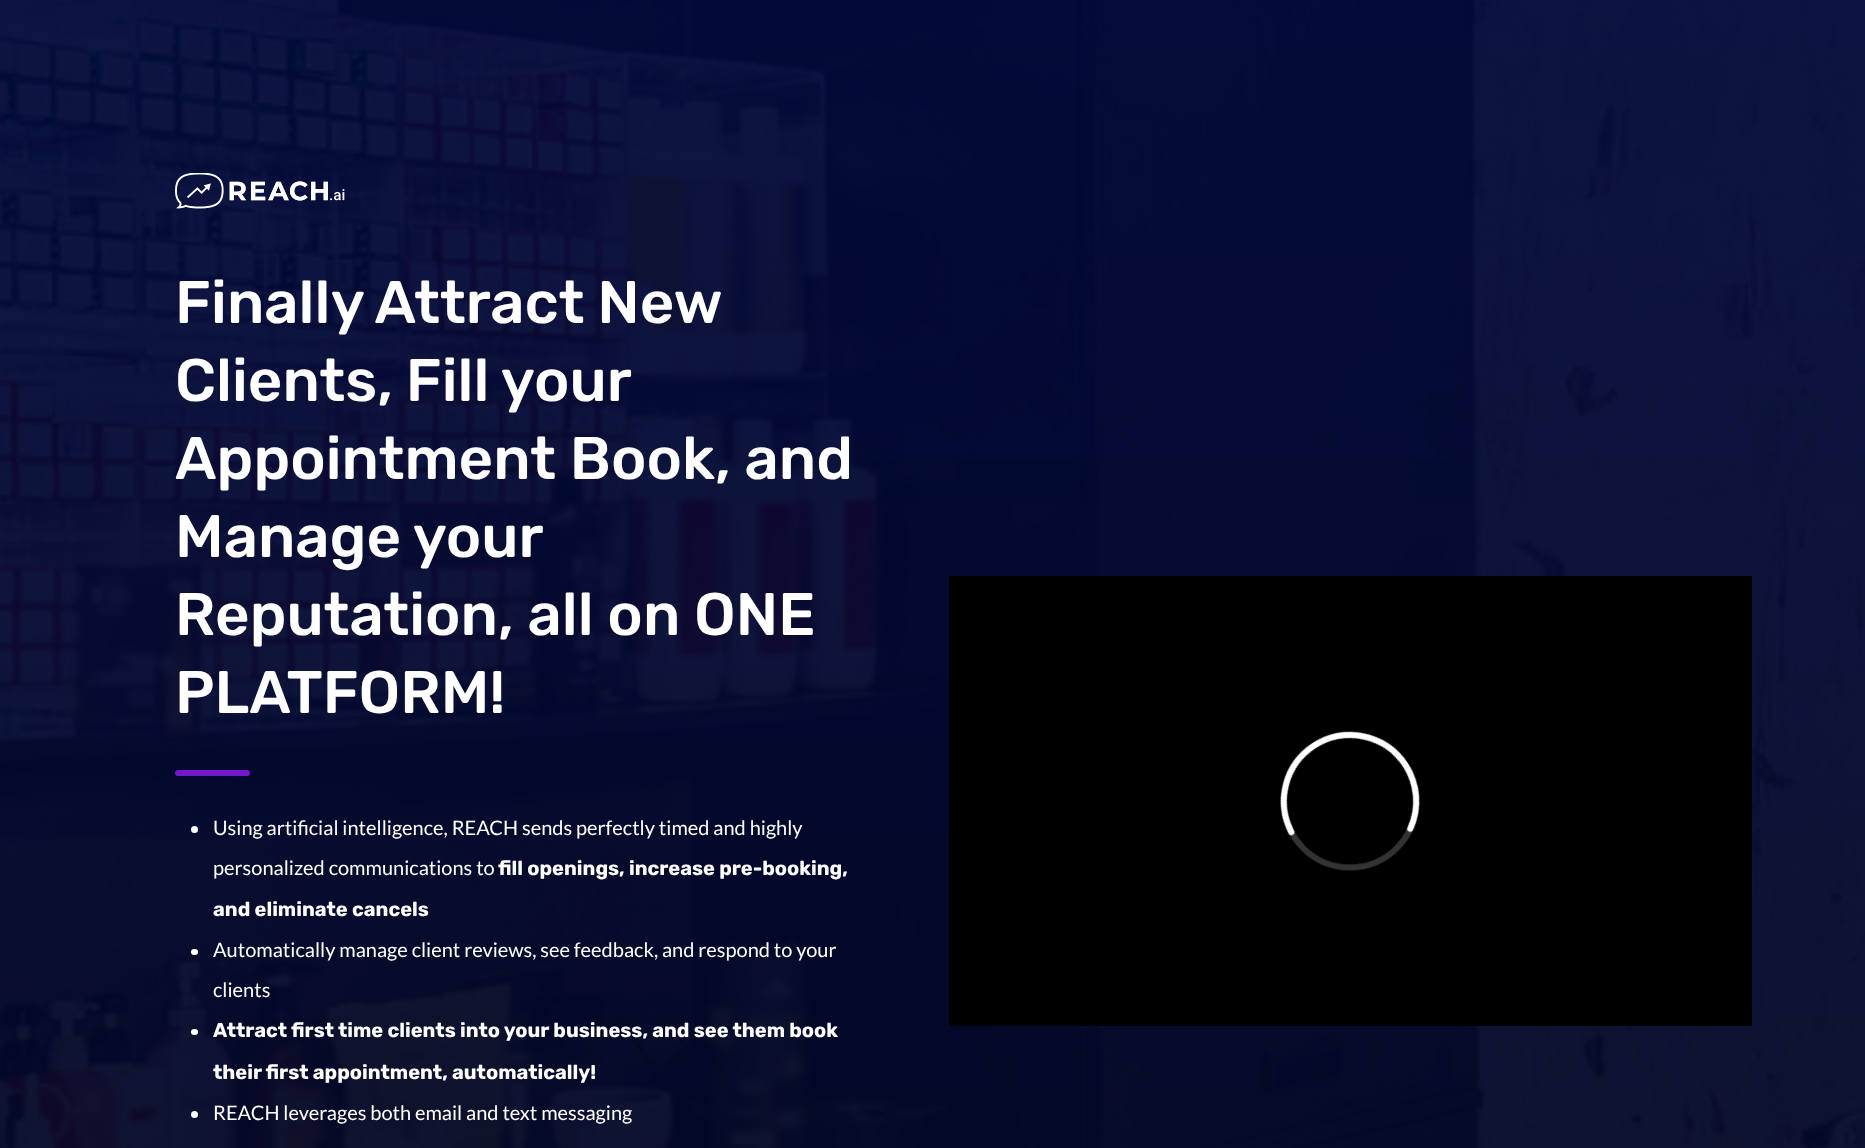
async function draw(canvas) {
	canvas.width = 1865;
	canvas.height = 1148;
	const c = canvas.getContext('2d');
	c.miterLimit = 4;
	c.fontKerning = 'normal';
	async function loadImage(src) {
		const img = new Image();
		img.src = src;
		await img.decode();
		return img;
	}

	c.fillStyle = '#fff';
	c.fillRect(0, 0, 1865, 1148);
	c.drawImage(await loadImage('img1.png'), 0, 0, 1865, 1148);
	c.drawImage(await loadImage('img2.png'), 175, 173, 170, 36);
	c.wordSpacing = '-1px';
	c.font = '500 60px Rubik';
	c.fillText('Finally Attract New', 175, 323);
	c.fillText('Clients, Fill your', 175, 401);
	c.wordSpacing = '0px';
	c.fillText('Appointment Book, and', 175, 479);
	c.wordSpacing = '-1px';
	c.fillText('Manage your', 175, 557);
	c.wordSpacing = '0px';
	c.fillText('Reputation, all on ONE', 175, 635);
	c.fillText('PLATFORM!', 175, 713);
	c.fillStyle = '#7318cb';
	c.beginPath();
	c.roundRect(175, 770, 75, 6, 3);
	c.fill();
	c.fillStyle = '#fff';
	c.beginPath();
	c.arc(194.5, 829.5, 3.5, 0, 2 * Math.PI);
	c.fill();
	c.font = '20px Lato';
	c.fillText('Using artificial intelligence, REACH sends perfectly timed and highly', 213, 835);
	c.fillText('personalized communications to', 213, 875);
	c.font = 'bold 20px Rubik';
	c.fillText('fill openings, increase pre-booking,', 498, 875);
	c.fillText('and eliminate cancels', 213, 916);
	c.beginPath();
	c.roundRect(191, 949, 7, 6, 3);
	c.fill();
	c.font = '20px Lato';
	c.fillText('Automatically manage client reviews, see feedback, and respond to your', 213, 957);
	c.fillText('clients', 213, 997);
	c.beginPath();
	c.roundRect(191, 1029, 7, 6, 3);
	c.fill();
	c.font = 'bold 20px Rubik';
	c.fillText('Attract first time clients into your business, and see them book', 213, 1037);
	c.fillText('their first appointment, automatically!', 213, 1079);
	c.beginPath();
	c.arc(194.5, 1114.5, 3.5, 0, 2 * Math.PI);
	c.fill();
	c.font = '20px Lato';
	c.fillText('REACH leverages both email and text messaging', 213, 1120);
	c.drawImage(await loadImage('img3.png'), 949, 576, 803, 450);
}

draw(document.querySelector('canvas'));
